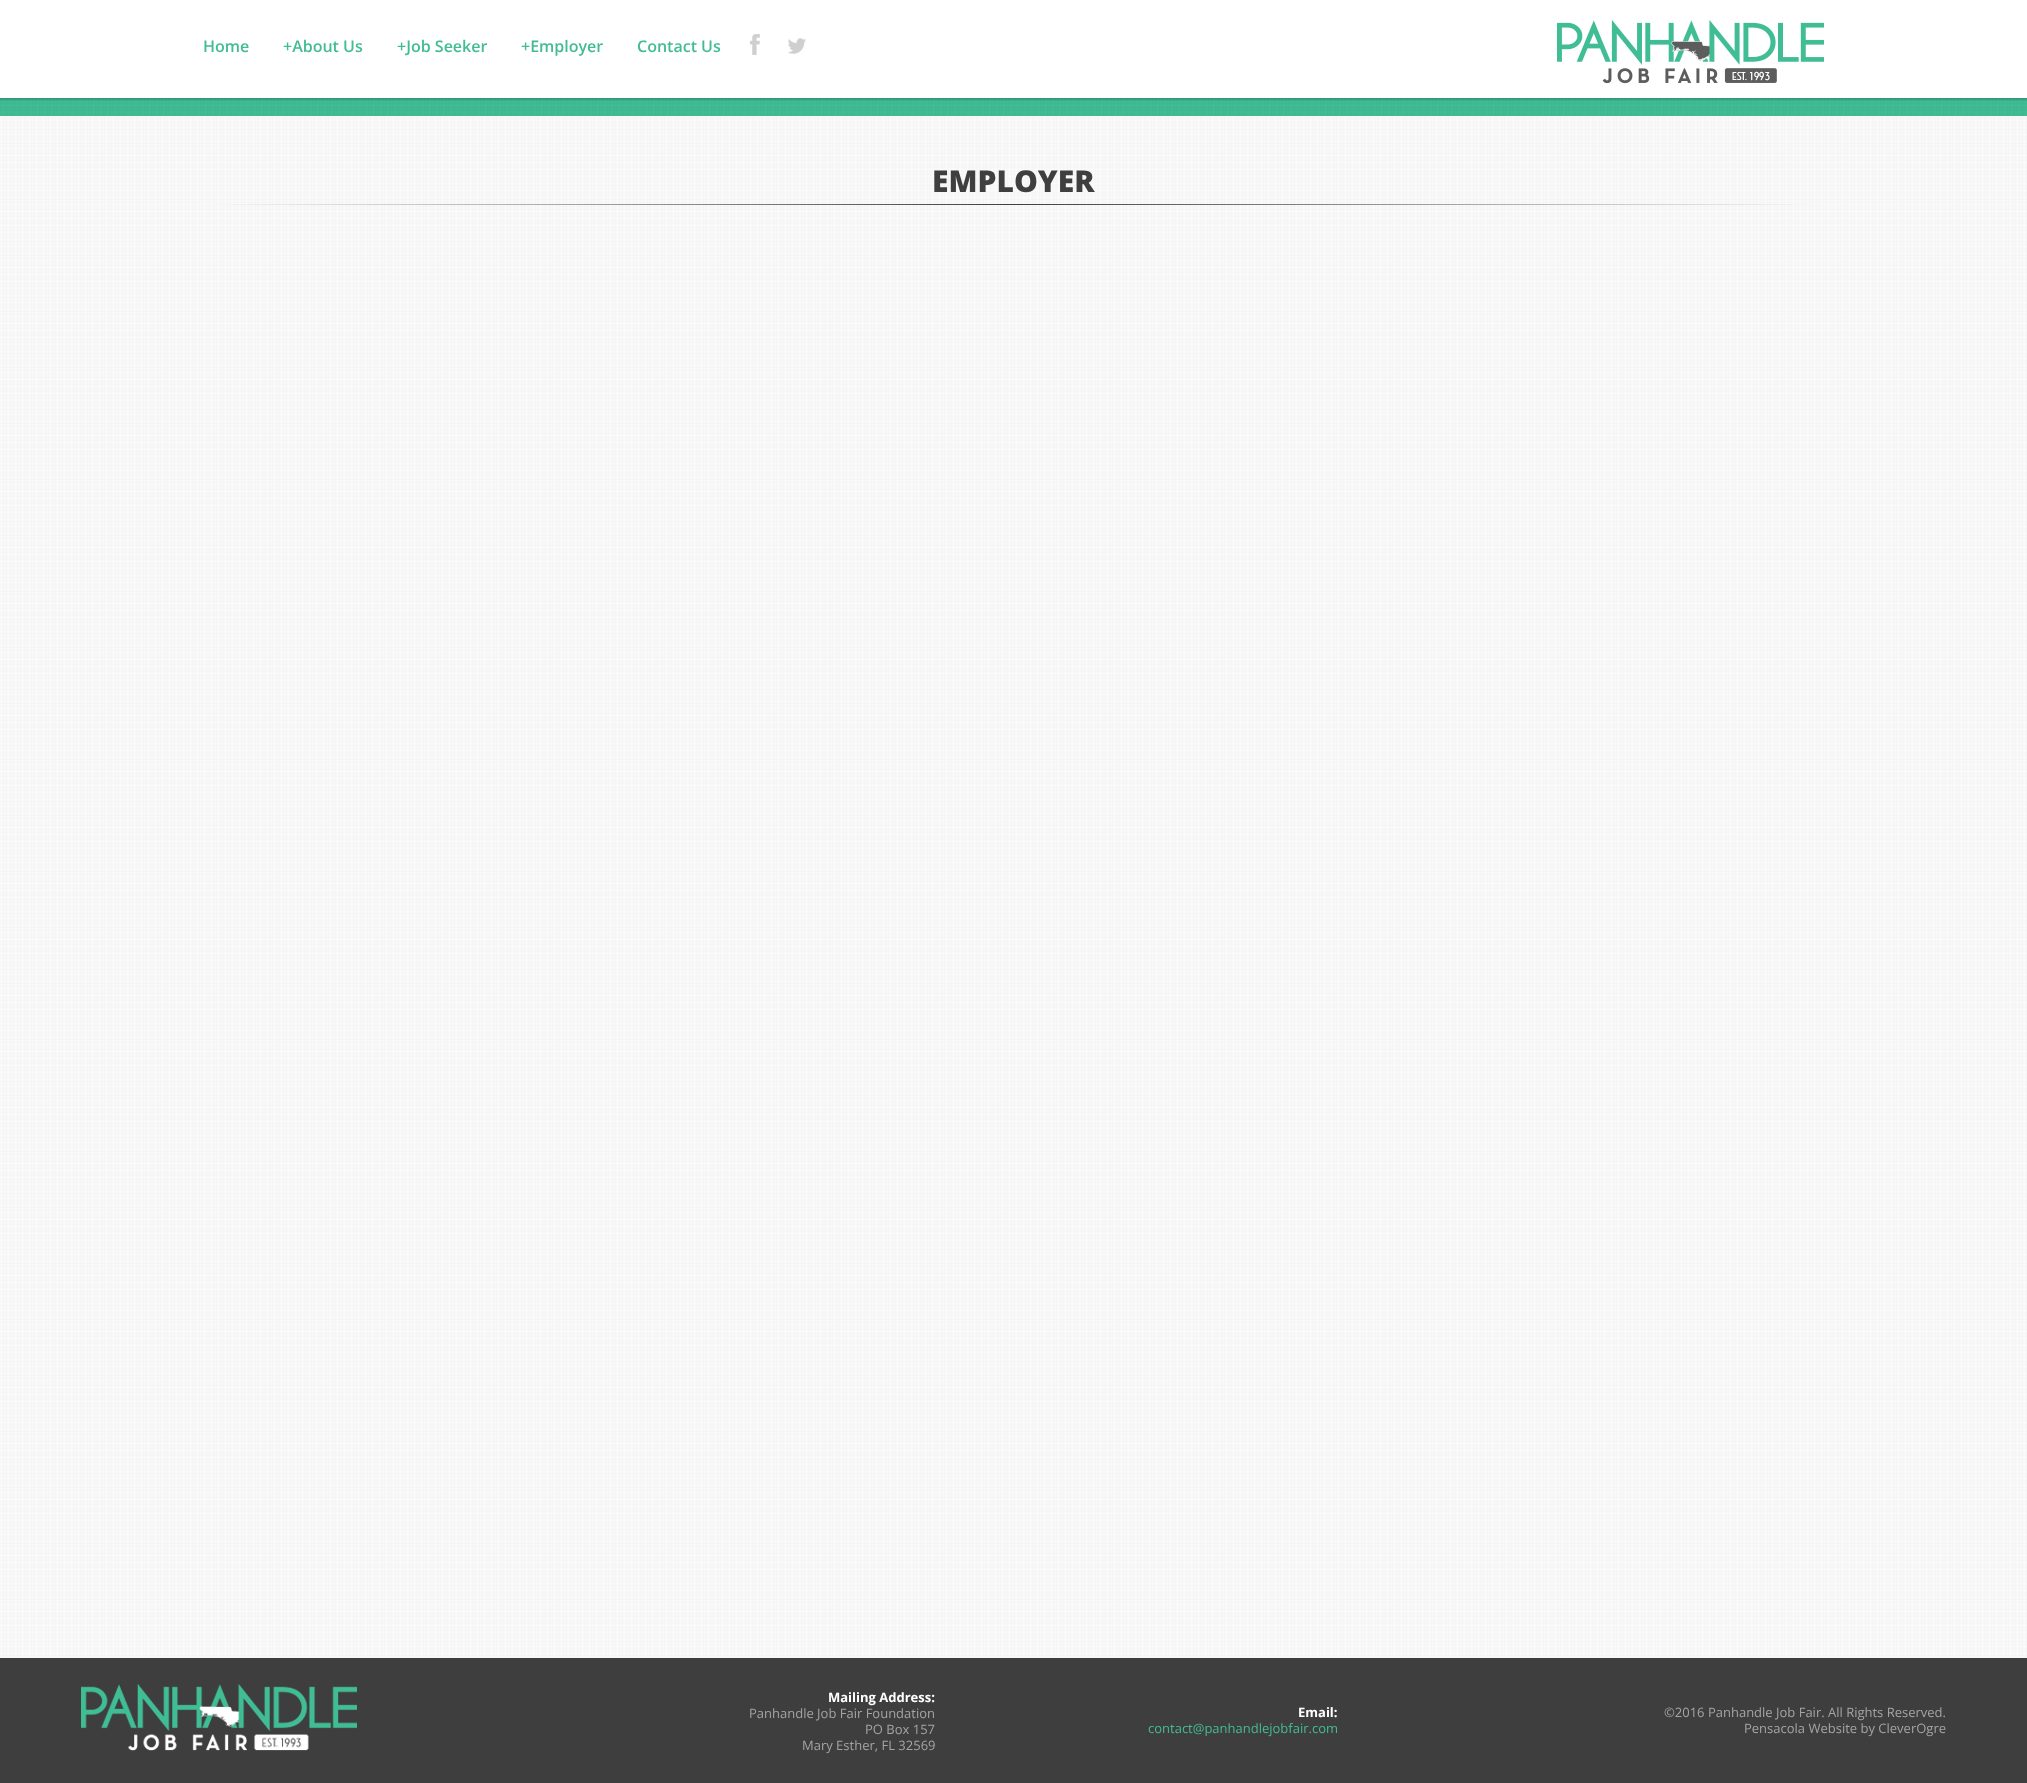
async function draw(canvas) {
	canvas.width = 2027;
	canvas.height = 1783;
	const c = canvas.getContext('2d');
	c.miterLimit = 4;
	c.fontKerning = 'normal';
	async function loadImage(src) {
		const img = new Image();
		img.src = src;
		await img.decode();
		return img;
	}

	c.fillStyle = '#fff';
	c.fillRect(0, 0, 2027, 1783);
	c.drawImage(await loadImage('img1.png'), 0, 116, 2027, 1542);
	c.font = '600 16px Open Sans';
	c.fillStyle = '#43bc94';
	for (const [text, x, y] of [
		['Home', 203, 52],
		['+About Us', 283, 52],
		['+Job Seeker', 397, 52],
		['+Employer', 521, 52],
		['Contact Us', 637, 52],
	]) {
		c.fillText(text, x, y);
	}
	c.drawImage(await loadImage('img2.png'), 750, 34, 10, 21);
	c.drawImage(await loadImage('img3.png'), 788, 38, 18, 16);
	c.drawImage(await loadImage('img4.png'), 1557, 20, 267, 64);
	c.drawImage(await loadImage('img5.png'), 0, 98, 2027, 18);
	c.font = '800 30px Open Sans';
	c.fillStyle = '#3f3f3f';
	c.fillText('EMPLOYER', 932, 192);
	c.fillStyle = '#3e3e3e';
	c.fillRect(0, 1658, 2027, 125);
	c.drawImage(await loadImage('img6.png'), 81, 1684, 276, 67);
	c.font = 'bold 13px Open Sans';
	c.fillStyle = '#fff';
	c.fillText('Mailing Address:', 828, 1702);
	c.font = '13px Open Sans';
	c.fillStyle = '#a4a4a4';
	for (const [text, x, y] of [
		['Panhandle Job Fair Foundation', 749, 1718],
		['PO Box 157', 865, 1734],
		['Mary Esther, FL 32569', 802, 1750],
	]) {
		c.fillText(text, x, y);
	}
	c.font = 'bold 13px Open Sans';
	c.fillStyle = '#fff';
	c.fillText('Email:', 1298, 1717);
	c.font = '13px Open Sans';
	c.fillStyle = '#43bc94';
	c.fillText('contact@panhandlejobfair.com', 1148, 1733);
	c.fillStyle = '#a4a4a4';
	c.fillText('©2016 Panhandle Job Fair. All Rights Reserved.', 1664, 1717);
	c.fillText('Pensacola Website by CleverOgre', 1744, 1733);
}

draw(document.querySelector('canvas'));
